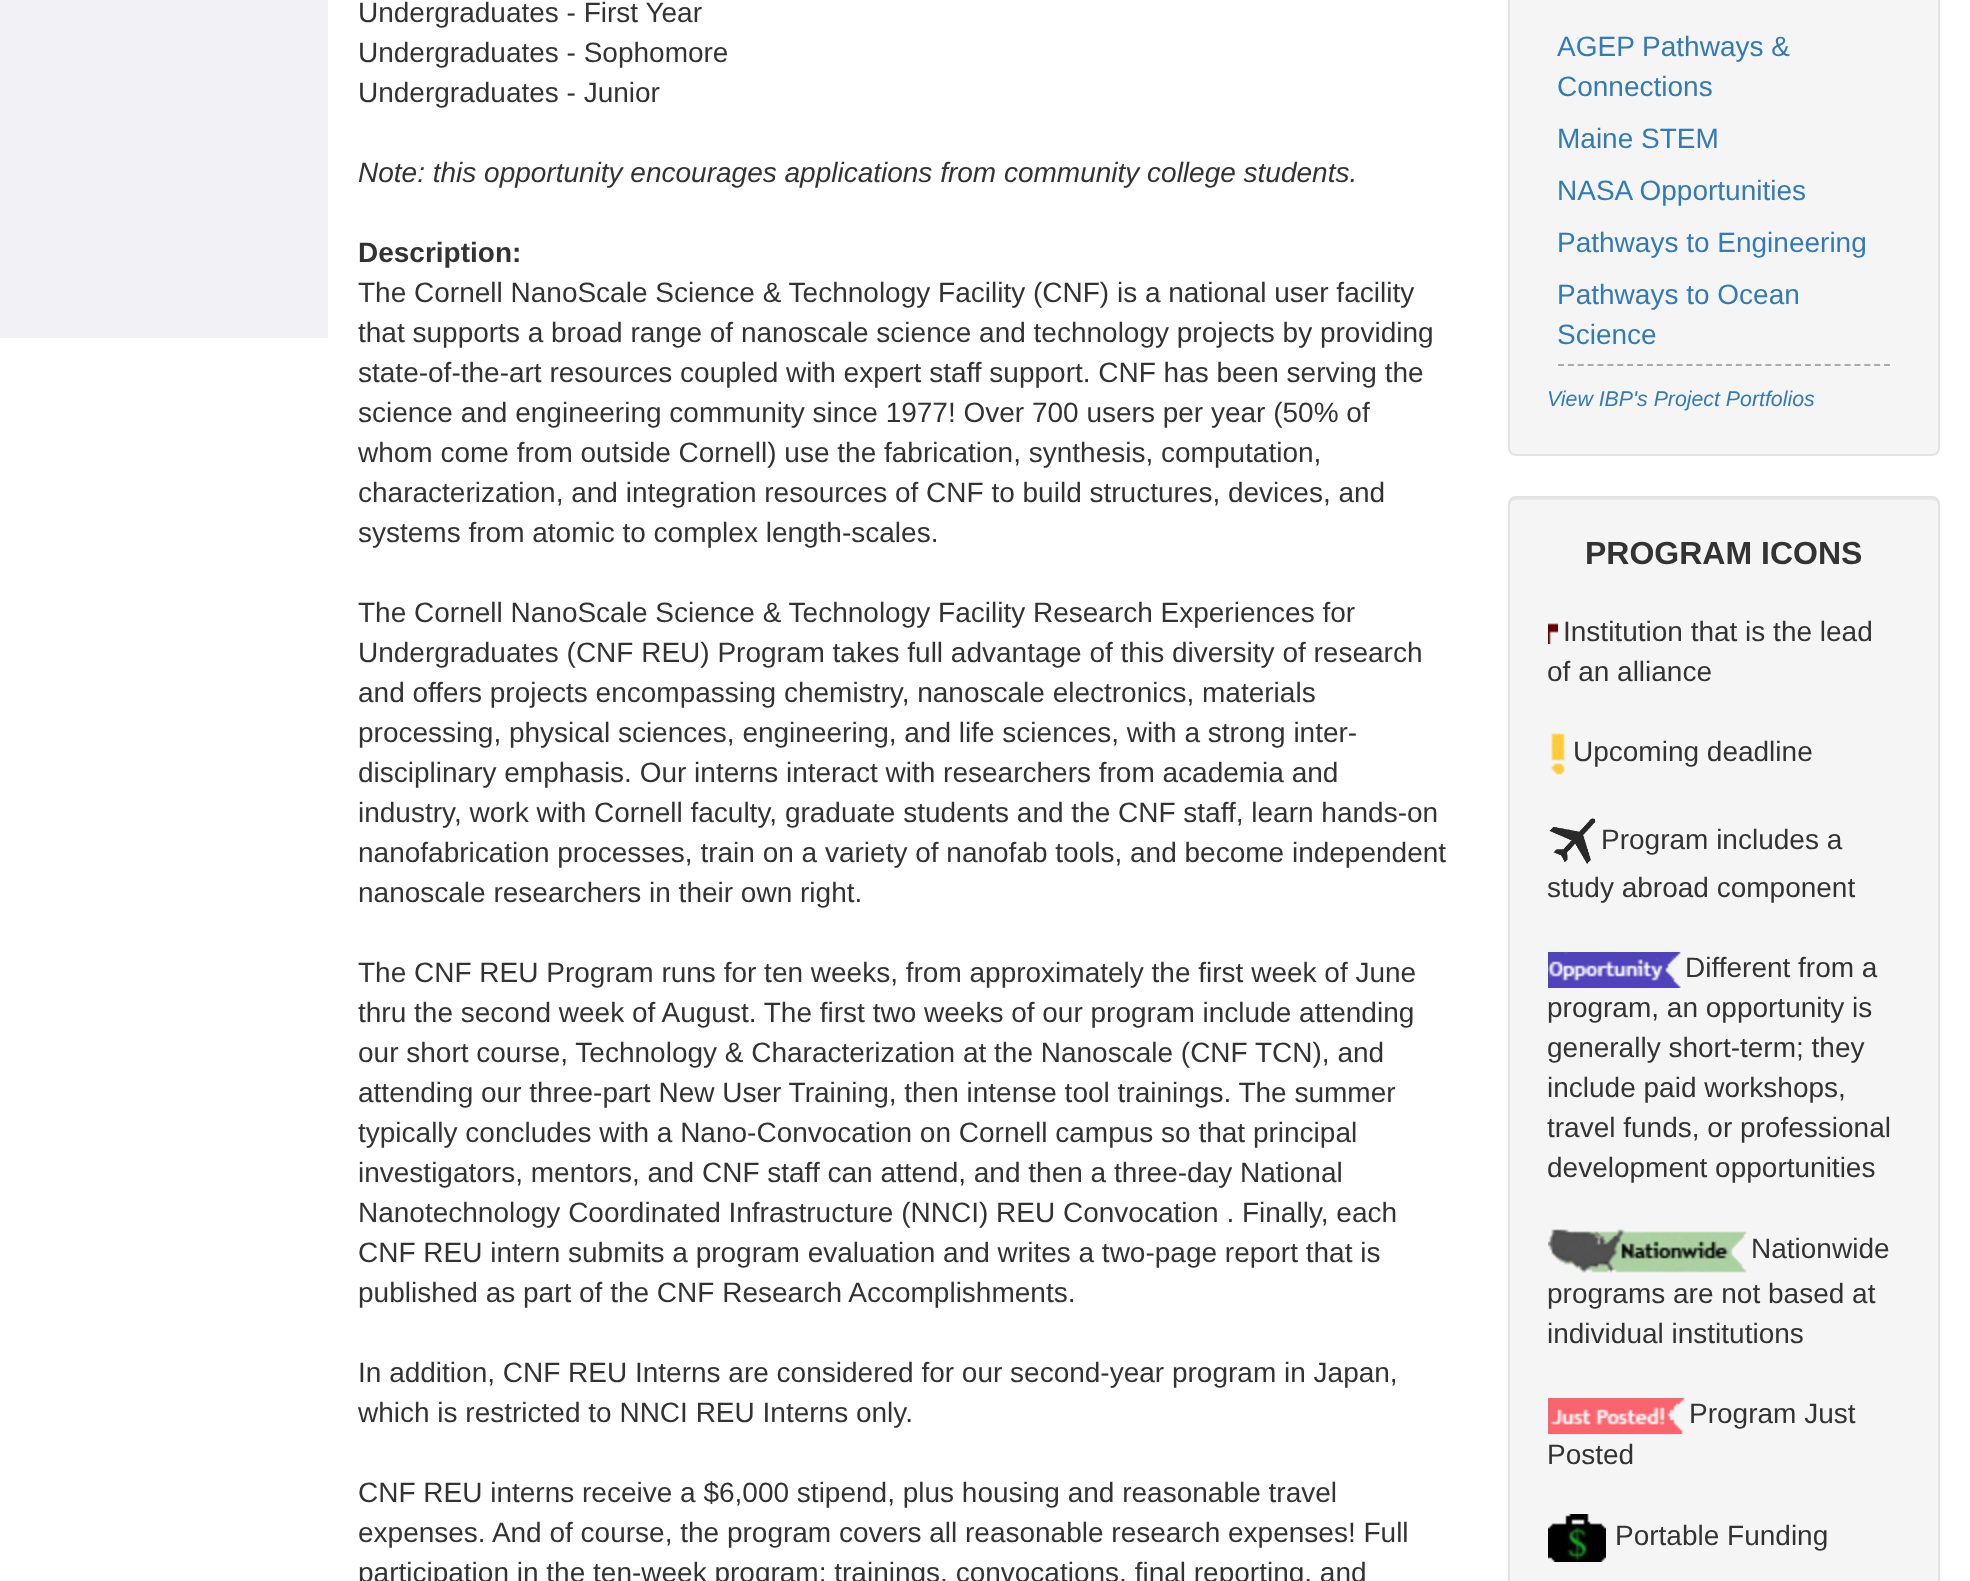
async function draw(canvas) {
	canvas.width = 1970;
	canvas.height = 1581;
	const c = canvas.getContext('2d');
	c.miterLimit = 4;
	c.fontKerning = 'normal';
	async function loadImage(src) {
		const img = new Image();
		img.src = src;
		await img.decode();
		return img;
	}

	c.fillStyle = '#fff';
	c.fillRect(0, 0, 1970, 1581);
	c.fillStyle = '#f1f1f6';
	c.fillRect(0, 0, 328, 338);
	c.font = '28px Liberation Sans';
	c.fillStyle = '#333';
	for (const [text, x, y] of [
		['Undergraduates - First Year', 358, 22],
		['Undergraduates - Sophomore', 358, 62],
		['Undergraduates - Junior', 358, 102],
	]) {
		c.fillText(text, x, y);
	}
	c.font = 'italic 28px Liberation Sans';
	c.fillText('Note: this opportunity encourages applications from community college students.', 358, 182);
	c.font = 'bold 28px Liberation Sans';
	c.fillText('Description:', 358, 262);
	c.font = '28px Liberation Sans';
	for (const [text, x, y] of [
		['The Cornell NanoScale Science & Technology Facility (CNF) is a national user facility', 358, 302],
		['that supports a broad range of nanoscale science and technology projects by providing', 358, 342],
		['state-of-the-art resources coupled with expert staff support. CNF has been serving the', 358, 382],
		['science and engineering community since 1977! Over 700 users per year (50% of', 358, 422],
		['whom come from outside Cornell) use the fabrication, synthesis, computation,', 358, 462],
		['characterization, and integration resources of CNF to build structures, devices, and', 358, 502],
		['systems from atomic to complex length-scales.', 358, 542],
		['The Cornell NanoScale Science & Technology Facility Research Experiences for', 358, 622],
		['Undergraduates (CNF REU) Program takes full advantage of this diversity of research', 358, 662],
		['and offers projects encompassing chemistry, nanoscale electronics, materials', 358, 702],
		['processing, physical sciences, engineering, and life sciences, with a strong inter-', 358, 742],
		['disciplinary emphasis. Our interns interact with researchers from academia and', 358, 782],
		['industry, work with Cornell faculty, graduate students and the CNF staff, learn hands-on', 358, 822],
		['nanofabrication processes, train on a variety of nanofab tools, and become independent', 358, 862],
		['nanoscale researchers in their own right.', 358, 902],
		['The CNF REU Program runs for ten weeks, from approximately the first week of June', 358, 982],
		['thru the second week of August. The first two weeks of our program include attending', 358, 1022],
		['our short course, Technology & Characterization at the Nanoscale (CNF TCN), and', 358, 1062],
		['attending our three-part New User Training, then intense tool trainings. The summer', 358, 1102],
		['typically concludes with a Nano-Convocation on Cornell campus so that principal', 358, 1142],
		['investigators, mentors, and CNF staff can attend, and then a three-day National', 358, 1182],
		['Nanotechnology Coordinated Infrastructure (NNCI) REU Convocation . Finally, each', 358, 1222],
		['CNF REU intern submits a program evaluation and writes a two-page report that is', 358, 1262],
		['published as part of the CNF Research Accomplishments.', 358, 1302],
		['In addition, CNF REU Interns are considered for our second-year program in Japan,', 358, 1382],
		['which is restricted to NNCI REU Interns only.', 358, 1422],
		['CNF REU interns receive a $6,000 stipend, plus housing and reasonable travel', 358, 1502],
		['expenses. And of course, the program covers all reasonable research expenses! Full', 358, 1542],
		['participation in the ten-week program; trainings, convocations, final reporting, and', 358, 1582],
	]) {
		c.fillText(text, x, y);
	}
	c.fillStyle = '#f5f5f5';
	c.beginPath();
	c.roundRect(1509, -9, 430, 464, 7);
	c.fill();
	c.strokeStyle = '#e3e3e3';
	c.lineWidth = 2;
	c.stroke();
	c.fillStyle = '#337ab7';
	for (const [text, x, y] of [
		['AGEP Pathways &', 1557, 56],
		['Connections', 1557, 96],
		['Maine STEM', 1557, 148],
		['NASA Opportunities', 1557, 200],
		['Pathways to Engineering', 1557, 252],
	]) {
		c.fillText(text, x, y);
	}
	c.beginPath();
	c.moveTo(1558, 365);
	c.lineTo(1890, 365);
	c.strokeStyle = '#ababab';
	c.setLineDash([6, 3.88]);
	c.stroke();
	c.fillText('Pathways to Ocean', 1557, 304);
	c.fillText('Science', 1557, 344);
	c.font = 'italic 21.3px Liberation Sans';
	c.fillText('View IBP\'s Project Portfolios', 1547, 406);
	c.fillStyle = '#f5f5f5';
	c.beginPath();
	c.roundRect(1508, 496, 432, 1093, 8);
	c.fill();
	c.fillStyle = '#e9e9e9';
	c.beginPath();
	c.moveTo(1516, 500);
	c.lineTo(1932, 500);
	c.bezierCurveTo(1935, 500, 1938, 503, 1938, 506);
	c.lineTo(1938, 504);
	c.bezierCurveTo(1938, 501, 1935, 498, 1932, 498);
	c.lineTo(1516, 498);
	c.bezierCurveTo(1513, 498, 1510, 501, 1510, 504);
	c.lineTo(1510, 506);
	c.bezierCurveTo(1510, 503, 1513, 500, 1516, 500);
	c.closePath();
	c.fill();
	c.beginPath();
	c.roundRect(1509, 497, 430, 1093, 7);
	c.strokeStyle = '#e3e3e3';
	c.setLineDash([]);
	c.stroke();
	c.font = 'bold 32px Liberation Sans';
	c.fillStyle = '#333';
	c.fillText('PROGRAM ICONS', 1585, 564);
	c.drawImage(await loadImage('img1.png'), 1548, 623, 10, 21);
	c.font = '28px Liberation Sans';
	c.fillText('Institution that is the lead', 1563, 641);
	c.fillText('of an alliance', 1547, 681);
	c.drawImage(await loadImage('img2.png'), 1551, 733, 14, 42);
	c.fillText('Upcoming deadline', 1573, 761);
	c.drawImage(await loadImage('img3.png'), 1549, 818, 47, 46);
	c.fillText('Program includes a', 1601, 849);
	c.fillText('study abroad component', 1547, 897);
	c.drawImage(await loadImage('img4.png'), 1548, 952, 133, 36);
	for (const [text, x, y] of [
		['Different from a', 1685, 977],
		['program, an opportunity is', 1547, 1017],
		['generally short-term; they', 1547, 1057],
		['include paid workshops,', 1547, 1097],
		['travel funds, or professional', 1547, 1137],
		['development opportunities', 1547, 1177],
	]) {
		c.fillText(text, x, y);
	}
	c.drawImage(await loadImage('img5.png'), 1548, 1229, 199, 44);
	for (const [text, x, y] of [
		['Nationwide', 1751, 1258],
		['programs are not based at', 1547, 1303],
		['individual institutions', 1547, 1343],
	]) {
		c.fillText(text, x, y);
	}
	c.drawImage(await loadImage('img6.png'), 1548, 1398, 137, 36);
	c.fillText('Program Just', 1689, 1423);
	c.fillText('Posted', 1547, 1464);
	c.drawImage(await loadImage('img7.png'), 1548, 1514, 58, 48);
	c.fillText('Portable Funding', 1615, 1545);
}

draw(document.querySelector('canvas'));
